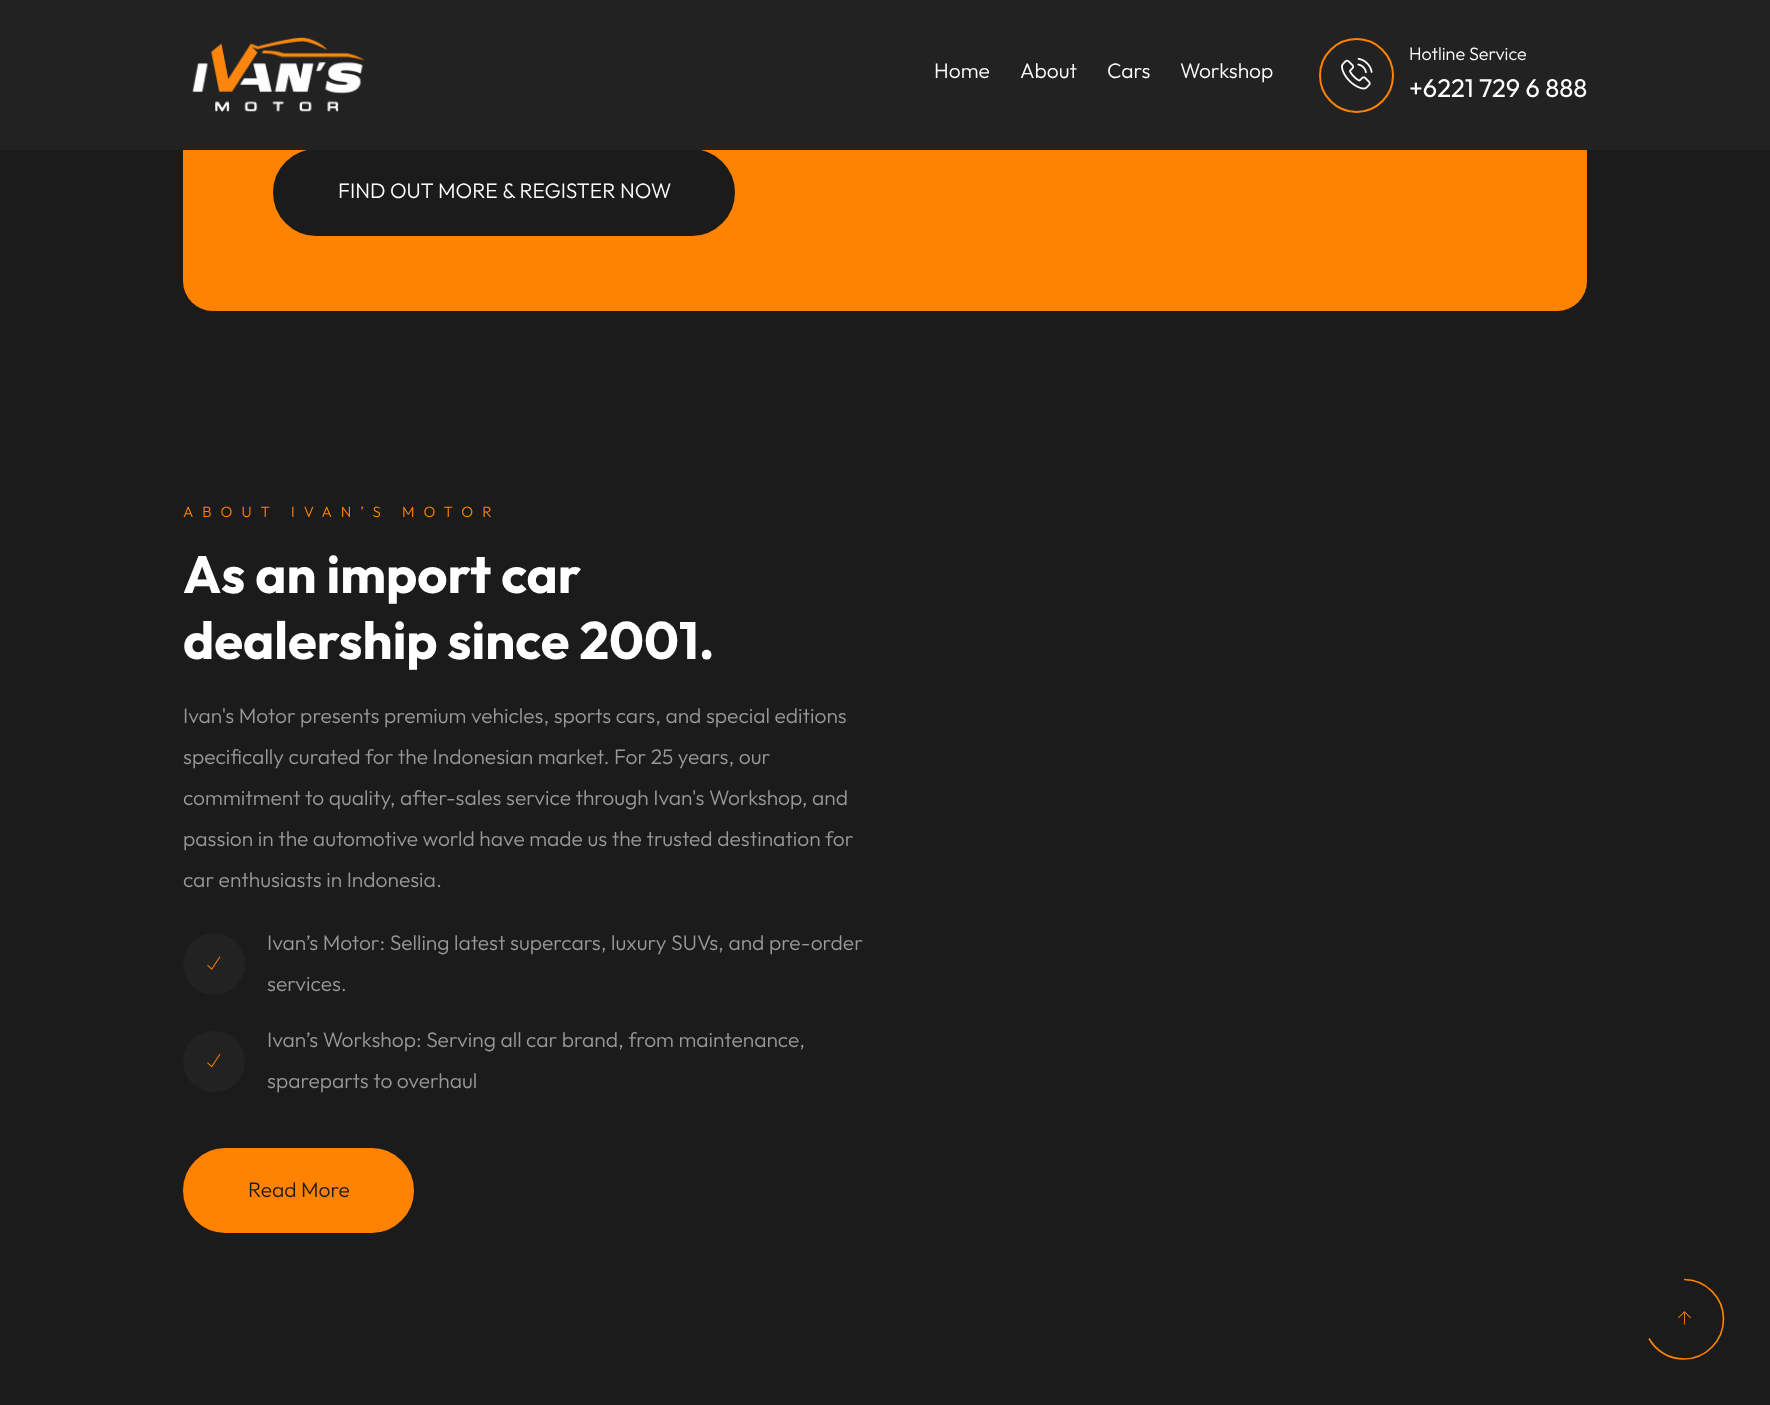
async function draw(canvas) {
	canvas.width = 1770;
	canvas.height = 1405;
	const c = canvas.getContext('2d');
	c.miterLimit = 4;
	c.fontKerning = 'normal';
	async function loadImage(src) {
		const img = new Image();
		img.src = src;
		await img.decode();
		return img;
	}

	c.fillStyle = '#1b1b1b';
	c.fillRect(0, 0, 1770, 1405);
	c.fillStyle = '#ff8300';
	c.beginPath();
	c.roundRect(183, -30, 1404, 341, 30);
	c.fill();
	c.fillStyle = '#1b1b1b';
	c.beginPath();
	c.roundRect(274, 150, 460, 85, 42.5);
	c.fill();
	c.strokeStyle = '#1b1b1b';
	c.lineWidth = 2;
	c.stroke();
	c.fillStyle = '#222';
	c.fillRect(0, 0, 1770, 150);
	c.drawImage(await loadImage('img1.png'), 192, 36, 173, 76);
	c.font = '300 21px Outfit';
	c.fillStyle = '#fff';
	for (const [text, x, y] of [
		['Home', 934, 78],
		['About', 1020, 78],
		['Cars', 1107, 78],
		['Workshop', 1180, 78],
	]) {
		c.fillText(text, x, y);
	}
	c.beginPath();
	c.arc(1356.5, 75.5, 36.5, 0, 2 * Math.PI);
	c.strokeStyle = '#ff8300';
	c.stroke();
	c.drawImage(await loadImage('img2.png'), 1341, 58, 32, 32);
	c.font = '300 18px Outfit';
	c.fillText('Hotline Service', 1409, 60);
	c.font = '25.5px Outfit';
	c.fillText('+6221 729 6 888', 1409, 97);
	c.font = '300 21px Outfit';
	c.fillText('FIND OUT MORE & REGISTER NOW', 338, 198);
	c.letterSpacing = '9px';
	c.font = '300 15px Outfit';
	c.fillStyle = '#ff8300';
	c.fillText('ABOUT IVAN’S MOTOR', 183, 517);
	c.letterSpacing = '0px';
	c.font = 'bold 52.5px Outfit';
	c.fillStyle = '#fff';
	c.fillText('As an import car', 183, 593);
	c.fillText('dealership since 2001.', 183, 659);
	c.font = '300 21px Outfit';
	c.fillStyle = '#999';
	for (const [text, x, y] of [
		['Ivan\'s Motor presents premium vehicles, sports cars, and special editions', 183, 723],
		['specifically curated for the Indonesian market. For 25 years, our', 183, 764],
		['commitment to quality, after-sales service through Ivan\'s Workshop, and', 183, 805],
		['passion in the automotive world have made us the trusted destination for', 183, 846],
		['car enthusiasts in Indonesia.', 183, 887],
	]) {
		c.fillText(text, x, y);
	}
	c.fillStyle = '#222';
	c.beginPath();
	c.arc(214, 964, 31, 0, 2 * Math.PI);
	c.fill();
	c.drawImage(await loadImage('img3.png'), 207, 956, 14, 14);
	c.fillStyle = '#999';
	c.fillText('Ivan’s Motor: Selling latest supercars, luxury SUVs, and pre-order', 267, 950);
	c.fillText('services.', 267, 991);
	c.fillStyle = '#222';
	c.beginPath();
	c.roundRect(183, 1031, 62, 61, 30.5);
	c.fill();
	c.drawImage(await loadImage('img4.png'), 207, 1053, 14, 15);
	c.fillStyle = '#999';
	c.fillText('Ivan’s Workshop: Serving all car brand, from maintenance,', 267, 1047);
	c.fillText('spareparts to overhaul', 267, 1088);
	c.fillStyle = '#ff8300';
	c.beginPath();
	c.roundRect(184, 1149, 229, 83, 41.5);
	c.fill();
	c.stroke();
	c.fillStyle = '#1b1b1b';
	c.fillText('Read More', 248, 1197);
	c.beginPath();
	c.moveTo(1684, 1279.5);
	c.bezierCurveTo(1705.5, 1279.5, 1723.5, 1297.5, 1723.5, 1319);
	c.bezierCurveTo(1723.5, 1341, 1705.5, 1359, 1684, 1359);
	c.bezierCurveTo(1669, 1359, 1656, 1351, 1649, 1338.5);
	c.lineWidth = 1.6;
	c.stroke();
	c.drawImage(await loadImage('img5.png'), 1678, 1311, 13, 14);
}

draw(document.querySelector('canvas'));
